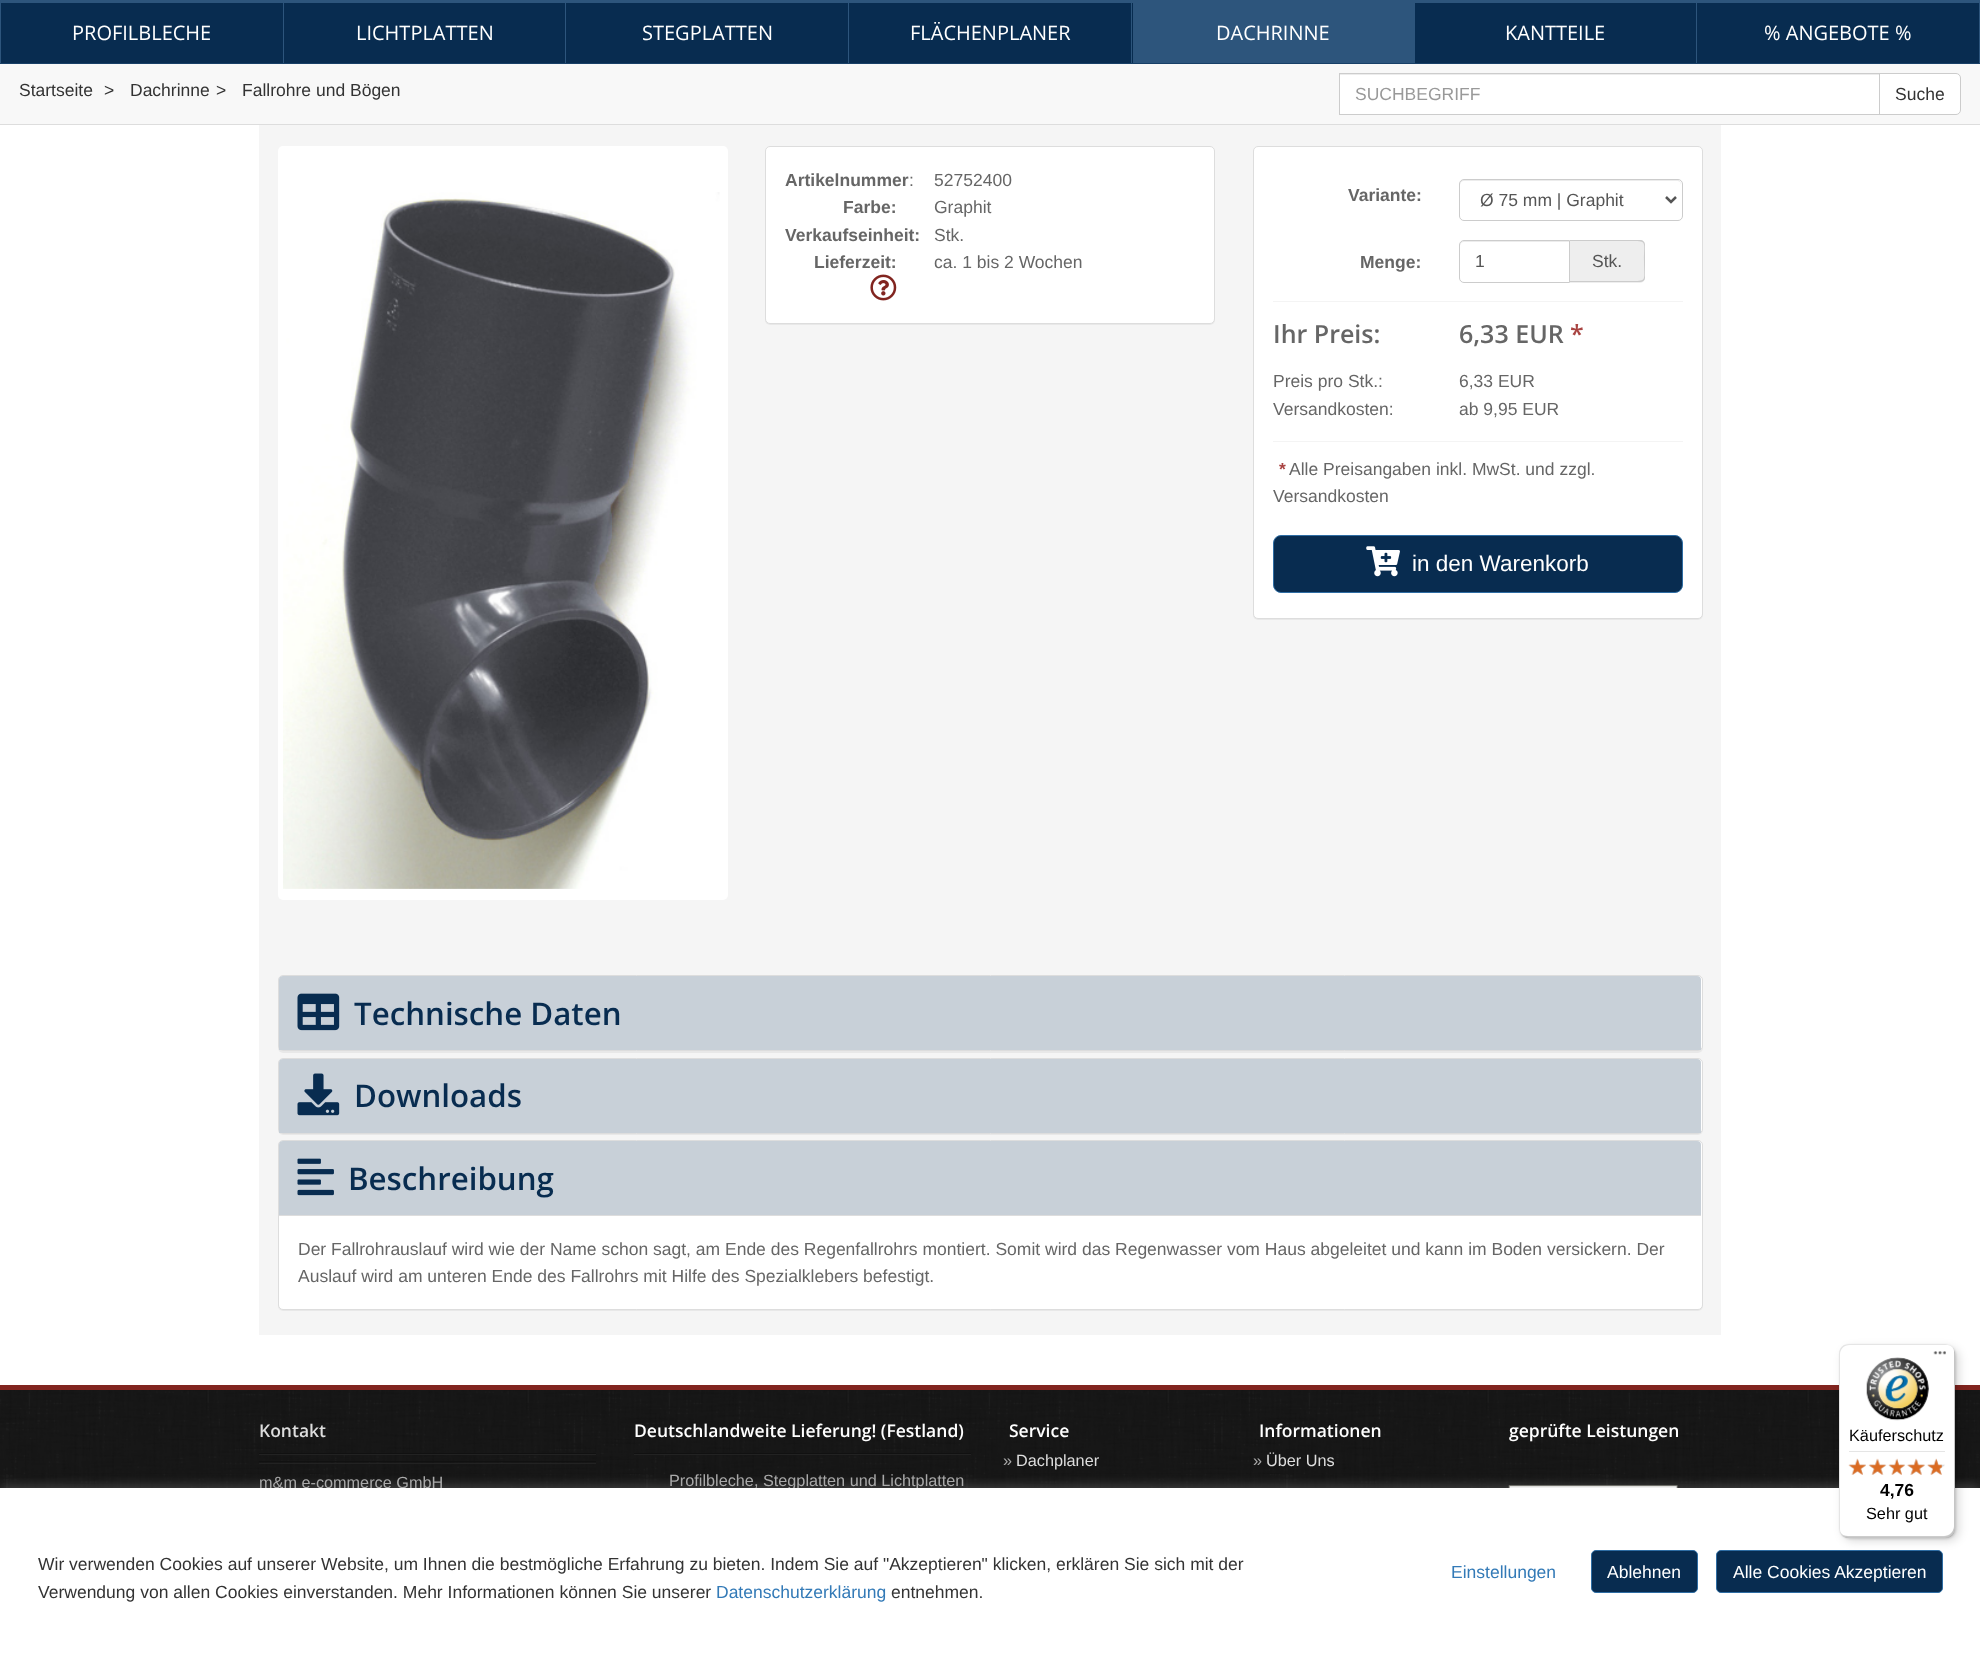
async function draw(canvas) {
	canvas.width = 1980;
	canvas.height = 1667;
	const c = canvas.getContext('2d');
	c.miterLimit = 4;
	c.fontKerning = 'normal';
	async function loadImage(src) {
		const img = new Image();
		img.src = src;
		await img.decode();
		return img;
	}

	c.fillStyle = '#fff';
	c.fillRect(0, 0, 1980, 1667);
	for (const [x, y, w, h, color] of [
		[1, 3, 1978, 60, '#082c50'],
		[0, 0, 1980, 3, '#2d557c'],
		[0, 63, 1980, 1, '#184067'],
		[0, 3, 1, 60, '#2d557c'],
		[283, 3, 1, 60, '#2d557c'],
	]) {
		c.fillStyle = color;
		c.fillRect(x, y, w, h);
	}
	c.font = '20px Open Sans';
	c.fillStyle = '#fff';
	c.fillText('PROFILBLECHE', 72, 40);
	c.fillStyle = '#2d557c';
	c.fillRect(565, 3, 1, 60);
	c.fillStyle = '#fff';
	c.fillText('LICHTPLATTEN', 356, 40);
	c.fillStyle = '#2d557c';
	c.fillRect(848, 3, 1, 60);
	c.fillStyle = '#fff';
	c.fillText('STEGPLATTEN', 642, 40);
	c.fillStyle = '#2d557c';
	c.fillRect(1131, 3, 1, 60);
	c.fillStyle = '#fff';
	c.fillText('FLÄCHENPLANER', 910, 40);
	c.fillStyle = '#2d557c';
	c.fillRect(1133, 3, 282, 60);
	c.fillStyle = '#fff';
	c.fillText('DACHRINNE', 1216, 40);
	c.fillStyle = '#2d557c';
	c.fillRect(1696, 3, 1, 60);
	c.fillStyle = '#fff';
	c.fillText('KANTTEILE', 1505, 40);
	c.fillStyle = '#2d557c';
	c.fillRect(1979, 3, 1, 60);
	c.fillStyle = '#fff';
	c.fillText('% ANGEBOTE %', 1764, 40);
	c.fillStyle = '#f8f8f8';
	c.fillRect(0, 64, 1980, 60);
	c.fillStyle = '#ddd';
	c.fillRect(0, 124, 1980, 1);
	c.font = '17.5px Liberation Sans';
	c.fillStyle = '#333';
	for (const [text, x, y] of [
		['Startseite', 19, 96],
		['>', 104, 96],
		['Dachrinne', 130, 96],
		['>', 216, 96],
		['Fallrohre und Bögen', 242, 96],
	]) {
		c.fillText(text, x, y);
	}
	c.fillStyle = '#fff';
	c.fillRect(1340, 75, 539, 39);
	c.fillStyle = '#ececec';
	c.fillRect(1340, 74, 539, 1);
	c.fillStyle = '#fff';
	c.beginPath();
	c.roundRect(1879.5, 73.5, 81, 41, [0, 4.5, 4.5, 0]);
	c.fill();
	c.strokeStyle = '#ccc';
	c.stroke();
	c.strokeRect(1339.5, 73.5, 540, 41);
	c.fillStyle = '#999';
	c.fillText('SUCHBEGRIFF', 1355, 100);
	c.fillStyle = '#333';
	c.fillText('Suche', 1895, 100);
	c.fillStyle = '#f5f5f5';
	c.fillRect(259, 125, 1462, 1210);
	c.fillStyle = '#fff';
	c.beginPath();
	c.roundRect(278, 146, 450, 754, 5);
	c.fill();
	c.drawImage(await loadImage('img1.png'), 283, 192, 437, 697);
	c.fillStyle = '#0000000d';
	c.filter = 'blur(0.5px)';
	c.beginPath();
	c.roundRect(765, 148, 450, 177, 5);
	c.fill();
	c.filter = 'none';
	c.fillStyle = '#fff';
	c.beginPath();
	c.roundRect(765.5, 146.5, 449, 177, 4.5);
	c.fill();
	c.strokeStyle = '#ddd';
	c.stroke();
	c.font = 'bold 17.5px Liberation Sans';
	c.fillStyle = '#666';
	c.fillText('Artikelnummer', 785, 186);
	c.font = '17.5px Liberation Sans';
	c.fillText(':', 909, 186);
	c.fillText('52752400', 934, 186);
	c.font = 'bold 17.5px Liberation Sans';
	c.fillText('Farbe:', 843, 213);
	c.font = '17.5px Liberation Sans';
	c.fillText('Graphit', 934, 213);
	c.font = 'bold 17.5px Liberation Sans';
	c.fillText('Verkaufseinheit:', 785, 241);
	c.font = '17.5px Liberation Sans';
	c.fillText('Stk.', 934, 241);
	c.font = 'bold 17.5px Liberation Sans';
	c.fillText('Lieferzeit:', 814, 268);
	c.drawImage(await loadImage('img2.png'), 870, 274, 27, 27);
	c.font = '17.5px Liberation Sans';
	c.fillText('ca. 1 bis 2 Wochen', 934, 268);
	c.fillStyle = '#0000000d';
	c.filter = 'blur(0.5px)';
	c.beginPath();
	c.roundRect(1253, 148, 450, 472, 5);
	c.fill();
	c.filter = 'none';
	c.fillStyle = '#fff';
	c.beginPath();
	c.roundRect(1253.5, 146.5, 449, 472, 4.5);
	c.fill();
	c.stroke();
	c.font = 'bold 17.5px Liberation Sans';
	c.fillStyle = '#666';
	c.fillText('Variante:', 1348, 201);
	c.fillStyle = '#ececec';
	c.beginPath();
	c.moveTo(1464, 181);
	c.lineTo(1678, 181);
	c.lineTo(1680, 182);
	c.lineTo(1681, 185);
	c.bezierCurveTo(1681, 182, 1680, 180, 1677, 180);
	c.lineTo(1464, 180);
	c.bezierCurveTo(1461, 180, 1460, 182, 1460, 185);
	c.bezierCurveTo(1460, 183, 1462, 181, 1464, 181);
	c.closePath();
	c.fill();
	c.beginPath();
	c.roundRect(1459.5, 179.5, 223, 41, 4.5);
	c.strokeStyle = '#ccc';
	c.stroke();
	c.beginPath();
	c.moveTo(1666, 197);
	c.lineTo(1671, 202);
	c.lineTo(1676, 197);
	c.strokeStyle = '#555';
	c.lineWidth = 2.5;
	c.stroke();
	c.font = '17.5px Liberation Sans';
	c.fillStyle = '#555';
	c.fillText('Ø 75 mm | Graphit', 1480, 206);
	c.font = 'bold 17.5px Liberation Sans';
	c.fillStyle = '#666';
	c.fillText('Menge:', 1360, 268);
	c.fillStyle = '#ececec';
	c.beginPath();
	c.moveTo(1464, 242);
	c.lineTo(1569, 242);
	c.lineTo(1569, 241);
	c.lineTo(1464, 241);
	c.bezierCurveTo(1462, 241, 1460, 243, 1460, 245);
	c.lineTo(1460, 246);
	c.bezierCurveTo(1460, 244, 1462, 242, 1464, 242);
	c.closePath();
	c.fill();
	c.beginPath();
	c.roundRect(1459.5, 240.5, 110, 42, [4.5, 0, 0, 4.5]);
	c.strokeStyle = '#ccc';
	c.lineWidth = 1;
	c.stroke();
	c.font = '17.5px Liberation Sans';
	c.fillStyle = '#555';
	c.fillText('1', 1475, 267);
	c.fillStyle = '#eee';
	c.beginPath();
	c.roundRect(1570, 240, 75, 43, [0, 5, 5, 0]);
	c.fill();
	c.fillStyle = '#ccc';
	c.beginPath();
	c.moveTo(1570, 240);
	c.lineTo(1640, 240);
	c.bezierCurveTo(1643, 240, 1645, 242, 1645, 245);
	c.lineTo(1645, 278);
	c.bezierCurveTo(1645, 280, 1643, 282, 1640, 282);
	c.lineTo(1570, 282);
	c.closePath();
	c.moveTo(1570, 241);
	c.lineTo(1628, 241);
	c.bezierCurveTo(1648, 241, 1644, 240, 1644, 261);
	c.bezierCurveTo(1644, 282, 1648, 281, 1628, 281);
	c.lineTo(1570, 281);
	c.closePath();
	c.fill('evenodd');
	c.fillStyle = '#555';
	c.fillText('Stk.', 1592, 267);
	c.fillStyle = '#f4f4f4';
	c.fillRect(1273, 301, 410, 1);
	c.font = '600 25px Open Sans';
	c.fillStyle = '#666';
	c.fillText('Ihr Preis:', 1273, 343);
	c.fillText('6,33 EUR', 1459, 343);
	c.fillStyle = '#a94442';
	c.fillText('*', 1570, 343);
	c.font = '17.5px Liberation Sans';
	c.fillStyle = '#666';
	for (const [text, x, y] of [
		['Preis pro Stk.:', 1273, 387],
		['6,33 EUR', 1459, 387],
		['Versandkosten:', 1273, 415],
		['ab 9,95 EUR', 1459, 415],
	]) {
		c.fillText(text, x, y);
	}
	c.fillStyle = '#f4f4f4';
	c.fillRect(1273, 441, 410, 1);
	c.font = 'bold 17.5px Liberation Sans';
	c.fillStyle = '#a94442';
	c.fillText('*', 1279, 475);
	c.font = '17.5px Liberation Sans';
	c.fillStyle = '#666';
	c.fillText('Alle Preisangaben inkl. MwSt. und zzgl.', 1289, 475);
	c.fillText('Versandkosten', 1273, 502);
	c.fillStyle = '#082c50';
	c.beginPath();
	c.roundRect(1273.5, 535.5, 409, 57, 7.5);
	c.fill();
	c.strokeStyle = '#2e6da4';
	c.stroke();
	c.drawImage(await loadImage('img3.png'), 1366, 546, 34, 31);
	c.font = '22.5px Liberation Sans';
	c.fillStyle = '#fff';
	c.fillText('in den Warenkorb', 1412, 571);
	c.fillStyle = '#0000000d';
	c.filter = 'blur(0.5px)';
	c.beginPath();
	c.roundRect(278, 976, 1425, 77, 5);
	c.fill();
	c.filter = 'none';
	c.fillStyle = '#fff';
	c.beginPath();
	c.roundRect(278.5, 975.5, 1424, 75, 4.5);
	c.fill();
	c.strokeStyle = '#ddd';
	c.stroke();
	c.fillStyle = '#c8d0d8';
	c.beginPath();
	c.roundRect(279, 976, 1422, 74, [4, 4, 0, 0]);
	c.fill();
	c.drawImage(await loadImage('img4.png'), 297, 993, 43, 38);
	c.font = '600 31.25px Open Sans';
	c.fillStyle = '#082c50';
	c.fillText('Technische Daten', 354, 1025);
	c.fillStyle = '#0000000d';
	c.filter = 'blur(0.5px)';
	c.beginPath();
	c.roundRect(278, 1059, 1425, 76, 5);
	c.fill();
	c.filter = 'none';
	c.fillStyle = '#fff';
	c.beginPath();
	c.roundRect(278.5, 1058.5, 1424, 75, 4.5);
	c.fill();
	c.stroke();
	c.fillStyle = '#c8d0d8';
	c.beginPath();
	c.roundRect(279, 1059, 1422, 74, [4, 4, 0, 0]);
	c.fill();
	c.drawImage(await loadImage('img5.png'), 297, 1073, 43, 43);
	c.fillStyle = '#082c50';
	c.fillText('Downloads', 354, 1107);
	c.fillStyle = '#0000000d';
	c.filter = 'blur(0.5px)';
	c.beginPath();
	c.roundRect(278, 1141, 1425, 170, 5);
	c.fill();
	c.filter = 'none';
	c.fillStyle = '#fff';
	c.beginPath();
	c.roundRect(278.5, 1140.5, 1424, 169, 4.5);
	c.fill();
	c.stroke();
	c.fillStyle = '#c8d0d8';
	c.beginPath();
	c.roundRect(279, 1141, 1422, 74, [4, 4, 0, 0]);
	c.fill();
	c.drawImage(await loadImage('img6.png'), 297, 1158, 37, 38);
	c.fillStyle = '#082c50';
	c.fillText('Beschreibung', 348, 1190);
	c.fillStyle = '#ddd';
	c.fillRect(279, 1215, 1422, 1);
	c.font = '17.5px Liberation Sans';
	c.fillStyle = '#666';
	c.fillText('Der Fallrohrauslauf wird wie der Name schon sagt, am Ende des Regenfallrohrs montiert. Somit wird das Regenwasser vom Haus abgeleitet und kann im Boden versickern. Der', 298, 1255);
	c.fillText('Auslauf wird am unteren Ende des Fallrohrs mit Hilfe des Spezialklebers befestigt.', 298, 1282);
	c.drawImage(await loadImage('img7.png'), 0, 1390, 1980, 98);
	c.fillStyle = '#81241f';
	c.fillRect(0, 1385, 1980, 5);
	c.font = '600 17.5px Open Sans';
	c.fillStyle = '#ddd';
	c.fillText('Kontakt', 259, 1437);
	for (const [x, y, w, h, color] of [
		[259, 1453, 337, 1, '#111'],
		[259, 1454, 337, 1, '#222'],
		[259, 1461, 337, 1, '#111'],
		[259, 1463, 337, 1, '#222'],
	]) {
		c.fillStyle = color;
		c.fillRect(x, y, w, h);
	}
	c.font = '16.25px Liberation Sans';
	c.fillStyle = '#aaa';
	c.fillText('m&m e-commerce GmbH', 259, 1488);
	c.font = '600 17.5px Open Sans';
	c.fillStyle = '#fff';
	c.fillText('Deutschlandweite Lieferung! (Festland)', 634, 1437);
	c.fillStyle = '#111';
	c.fillRect(634, 1453, 337, 1);
	c.fillStyle = '#222';
	c.fillRect(634, 1454, 337, 1);
	c.drawImage(await loadImage('img8.png'), 654, 1487, 1, 1);
	c.font = '16.25px Liberation Sans';
	c.fillStyle = '#aaa';
	c.fillText('Profilbleche, Stegplatten und Lichtplatten', 669, 1486);
	c.font = '600 17.5px Open Sans';
	c.fillStyle = '#fff';
	c.fillText('Service', 1009, 1437);
	c.font = '16.25px Liberation Sans';
	c.fillStyle = '#aaa';
	c.fillText('»', 1003, 1466);
	c.fillStyle = '#ddd';
	c.fillText('Dachplaner', 1016, 1466);
	c.font = '600 17.5px Open Sans';
	c.fillStyle = '#fff';
	c.fillText('Informationen', 1259, 1437);
	c.font = '16.25px Liberation Sans';
	c.fillStyle = '#aaa';
	c.fillText('»', 1253, 1466);
	c.fillStyle = '#ddd';
	c.fillText('Über Uns', 1266, 1466);
	c.font = '600 17.5px Open Sans';
	c.fillStyle = '#fff';
	c.fillText('geprüfte Leistungen', 1509, 1437);
	c.drawImage(await loadImage('img9.png'), 1508, 1485, 170, 3);
	c.fillStyle = '#acabab4d';
	c.filter = 'blur(6px)';
	c.beginPath();
	c.rect(0, 1486, 1980, 180);
	c.fill();
	c.filter = 'none';
	c.fillStyle = '#fff';
	c.fillRect(0, 1488, 1980, 179);
	c.fillStyle = '#082c50';
	c.beginPath();
	c.roundRect(1716.5, 1550.5, 226, 42, 4.5);
	c.fill();
	c.strokeStyle = '#2e6da4';
	c.stroke();
	c.fillStyle = '#00000026';
	c.filter = 'blur(5px)';
	c.beginPath();
	c.roundRect(1843, 1348, 116, 193, 10);
	c.fill();
	c.filter = 'none';
	c.filter = 'blur(1px)';
	c.beginPath();
	c.roundRect(1840, 1345, 116, 194, 10);
	c.fill();
	c.filter = 'none';
	c.fillStyle = '#fff';
	c.beginPath();
	c.roundRect(1839, 1344, 116, 194, 10);
	c.fill();
	c.fillStyle = '#e5e5e5';
	c.beginPath();
	c.moveTo(1850, 1345);
	c.lineTo(1946, 1345);
	c.bezierCurveTo(1948, 1345, 1950, 1345, 1951, 1346);
	c.bezierCurveTo(1950, 1345, 1947, 1344, 1945, 1344);
	c.lineTo(1849, 1344);
	c.bezierCurveTo(1843, 1344, 1839, 1348, 1839, 1354);
	c.lineTo(1839, 1528);
	c.bezierCurveTo(1839, 1531, 1840, 1534, 1843, 1536);
	c.bezierCurveTo(1841, 1534, 1840, 1531, 1840, 1529);
	c.lineTo(1840, 1355);
	c.bezierCurveTo(1840, 1349, 1844, 1345, 1850, 1345);
	c.closePath();
	c.fill();
	c.fillStyle = '#00000033';
	c.beginPath();
	c.moveTo(1840, 1532);
	c.bezierCurveTo(1842, 1536, 1845, 1538, 1849, 1538);
	c.lineTo(1945, 1538);
	c.bezierCurveTo(1951, 1538, 1955, 1534, 1955, 1528);
	c.lineTo(1955, 1354);
	c.bezierCurveTo(1955, 1352, 1954, 1350, 1953, 1348);
	c.bezierCurveTo(1954, 1349, 1954, 1351, 1954, 1352);
	c.lineTo(1954, 1526);
	c.bezierCurveTo(1954, 1532, 1949, 1536, 1944, 1536);
	c.lineTo(1848, 1536);
	c.bezierCurveTo(1845, 1536, 1842, 1535, 1840, 1532);
	c.closePath();
	c.fill();
	c.fillStyle = '#32323233';
	c.beginPath();
	c.moveTo(1841, 1535);
	c.bezierCurveTo(1843, 1537, 1846, 1538, 1849, 1538);
	c.lineTo(1945, 1538);
	c.bezierCurveTo(1951, 1538, 1955, 1534, 1955, 1528);
	c.lineTo(1955, 1354);
	c.bezierCurveTo(1955, 1352, 1954, 1349, 1953, 1348);
	c.bezierCurveTo(1954, 1349, 1954, 1351, 1954, 1353);
	c.lineTo(1954, 1527);
	c.bezierCurveTo(1954, 1532, 1950, 1537, 1944, 1537);
	c.lineTo(1848, 1537);
	c.bezierCurveTo(1845, 1537, 1843, 1536, 1841, 1535);
	c.closePath();
	c.fill();
	c.fillStyle = '#ffffff4d';
	c.beginPath();
	c.moveTo(1840, 1533);
	c.bezierCurveTo(1842, 1536, 1845, 1538, 1849, 1538);
	c.lineTo(1945, 1538);
	c.bezierCurveTo(1951, 1538, 1955, 1534, 1955, 1528);
	c.lineTo(1955, 1354);
	c.bezierCurveTo(1955, 1351, 1954, 1348, 1951, 1346);
	c.bezierCurveTo(1953, 1348, 1954, 1351, 1954, 1353);
	c.lineTo(1954, 1527);
	c.bezierCurveTo(1954, 1532, 1950, 1537, 1944, 1537);
	c.lineTo(1848, 1537);
	c.bezierCurveTo(1845, 1537, 1842, 1535, 1840, 1533);
	c.closePath();
	c.fill();
	c.drawImage(await loadImage('img10.png'), 1933, 1351, 13, 4);
	c.drawImage(await loadImage('img11.png'), 1866, 1357, 63, 64);
	c.font = '16.25px Liberation Sans';
	c.fillStyle = '#000';
	c.fillText('Käuferschutz', 1849, 1441);
	c.fillStyle = '#e5e5e5';
	c.fillRect(1849, 1451, 96, 1);
	c.drawImage(await loadImage('img17.png'), 1849, 1459, 17, 16);
	c.drawImage(await loadImage('img12.png'), 1848, 1458, 18, 17);
	c.drawImage(await loadImage('img18.png'), 1869, 1459, 17, 16);
	c.drawImage(await loadImage('img13.png'), 1868, 1458, 19, 17);
	c.drawImage(await loadImage('img19.png'), 1889, 1459, 16, 16);
	c.drawImage(await loadImage('img14.png'), 1888, 1458, 17, 17);
	c.drawImage(await loadImage('img20.png'), 1907, 1459, 18, 16);
	c.drawImage(await loadImage('img15.png'), 1907, 1458, 18, 17);
	c.drawImage(await loadImage('img21.png'), 1927, 1459, 18, 16);
	c.drawImage(await loadImage('img16.png'), 1927, 1458, 15, 17);
	c.font = 'bold 17.5px Liberation Sans';
	c.fillStyle = '#000';
	c.fillText('4,76', 1880, 1496);
	c.font = '16.25px Liberation Sans';
	c.fillText('Sehr gut', 1866, 1519);
	c.font = '17.5px Liberation Sans';
	c.fillStyle = '#333';
	c.fillText('Wir verwenden Cookies auf unserer Website, um Ihnen die bestmögliche Erfahrung zu bieten. Indem Sie auf "Akzeptieren" klicken, erklären Sie sich mit der', 38, 1570);
	c.fillText('Verwendung von allen Cookies einverstanden. Mehr Informationen können Sie unserer', 38, 1598);
	c.fillStyle = '#337ab7';
	c.fillText('Datenschutzerklärung', 716, 1598);
	c.fillStyle = '#333';
	c.fillText('entnehmen.', 891, 1598);
	c.fillStyle = '#337ab7';
	c.fillText('Einstellungen', 1451, 1578);
	c.fillStyle = '#082c50';
	c.beginPath();
	c.roundRect(1591.5, 1550.5, 106, 42, 4.5);
	c.fill();
	c.stroke();
	c.fillStyle = '#fff';
	c.fillText('Ablehnen', 1607, 1578);
	c.fillText('Alle Cookies Akzeptieren', 1733, 1578);
}

draw(document.querySelector('canvas'));
